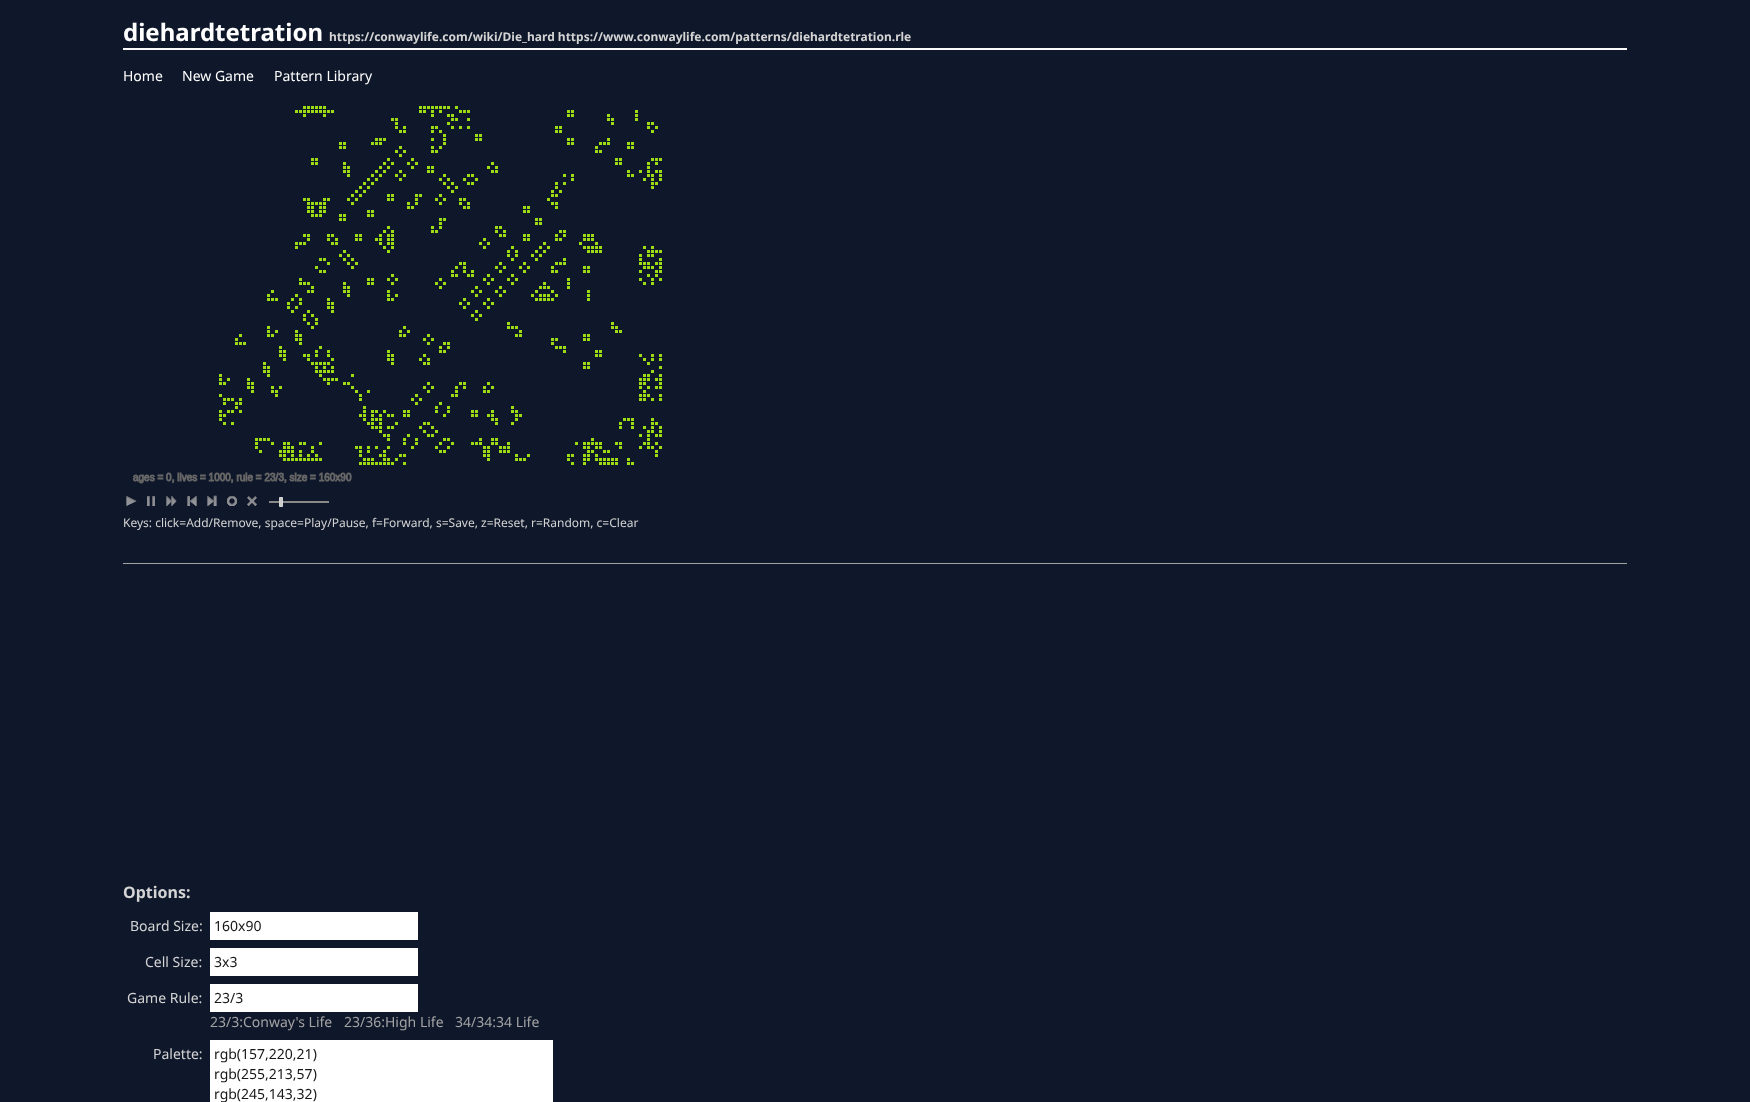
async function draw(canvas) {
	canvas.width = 1750;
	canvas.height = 1102;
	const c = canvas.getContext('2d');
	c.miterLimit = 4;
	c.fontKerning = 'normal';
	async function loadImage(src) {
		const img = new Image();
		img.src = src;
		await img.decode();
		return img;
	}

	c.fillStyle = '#0f172a';
	c.fillRect(0, 0, 1750, 1102);
	c.fillStyle = '#fafafa';
	c.fillRect(123, 48, 1504, 2);
	c.font = 'bold 24px Noto Sans';
	c.fillStyle = '#fff';
	c.fillText('diehardtetration', 123, 41);
	c.font = 'bold 12px Noto Sans';
	c.fillStyle = '#d4d4d4';
	c.fillText('https://conwaylife.com/wiki/Die_hard https://www.conwaylife.com/patterns/diehardtetration.rle', 329, 41);
	c.font = '14px Noto Sans';
	c.fillStyle = '#fff';
	for (const [text, x, y] of [
		['Home', 123, 81],
		['New Game', 182, 81],
		['Pattern Library', 274, 81],
	]) {
		c.fillText(text, x, y);
	}
	c.drawImage(await loadImage('img1.png'), 133, 106, 529, 378);
	c.drawImage(await loadImage('img2.png'), 126, 496, 11, 10);
	c.drawImage(await loadImage('img3.png'), 147, 496, 8, 10);
	c.drawImage(await loadImage('img4.png'), 166, 495, 11, 11);
	c.drawImage(await loadImage('img5.png'), 187, 495, 10, 11);
	c.drawImage(await loadImage('img6.png'), 207, 495, 10, 11);
	c.drawImage(await loadImage('img7.png'), 227, 496, 10, 10);
	c.drawImage(await loadImage('img8.png'), 247, 496, 10, 10);
	c.fillStyle = '#888';
	c.fillRect(269, 501, 60, 2);
	c.fillStyle = '#ccc';
	c.beginPath();
	c.rect(279.5, 497.5, 3, 9);
	c.fill();
	c.strokeStyle = '#d3d3d3';
	c.stroke();
	c.font = '12px Noto Sans';
	c.fillStyle = '#d4d4d4';
	c.fillText('Keys: click=Add/Remove, space=Play/Pause, f=Forward, s=Save, z=Reset, r=Random, c=Clear', 123, 527);
	c.fillStyle = '#a3a3a3';
	c.fillRect(123, 563, 1504, 1);
	c.font = 'bold 16px Noto Sans';
	c.fillStyle = '#d4d4d4';
	c.fillText('Options:', 123, 898);
	c.font = '14px Noto Sans';
	c.fillText('Board Size:', 130, 931);
	c.fillStyle = '#fff';
	c.fillRect(210, 912, 208, 28);
	c.fillStyle = '#171717';
	c.fillText('160x90', 214, 931);
	c.fillStyle = '#d4d4d4';
	c.fillText('Cell Size:', 145, 967);
	c.fillStyle = '#fff';
	c.fillRect(210, 948, 208, 28);
	c.fillStyle = '#171717';
	c.fillText('3x3', 214, 967);
	c.fillStyle = '#d4d4d4';
	c.fillText('Game Rule:', 127, 1003);
	c.fillStyle = '#fff';
	c.fillRect(210, 984, 208, 28);
	c.fillStyle = '#171717';
	c.fillText('23/3', 214, 1003);
	c.fillStyle = '#a3a3a3';
	for (const [text, x, y] of [
		['23/3:Conway\'s Life', 210, 1027],
		['23/36:High Life', 344, 1027],
		['34/34:34 Life', 455, 1027],
	]) {
		c.fillText(text, x, y);
	}
	c.fillStyle = '#d4d4d4';
	c.fillText('Palette:', 153, 1059);
	c.fillStyle = '#fff';
	c.fillRect(210, 1040, 343, 62);
	c.fillStyle = '#171717';
	for (const [text, x, y] of [
		['rgb(157,220,21)', 214, 1059],
		['rgb(255,213,57)', 214, 1079],
		['rgb(245,143,32)', 214, 1099],
	]) {
		c.fillText(text, x, y);
	}
}

draw(document.querySelector('canvas'));
